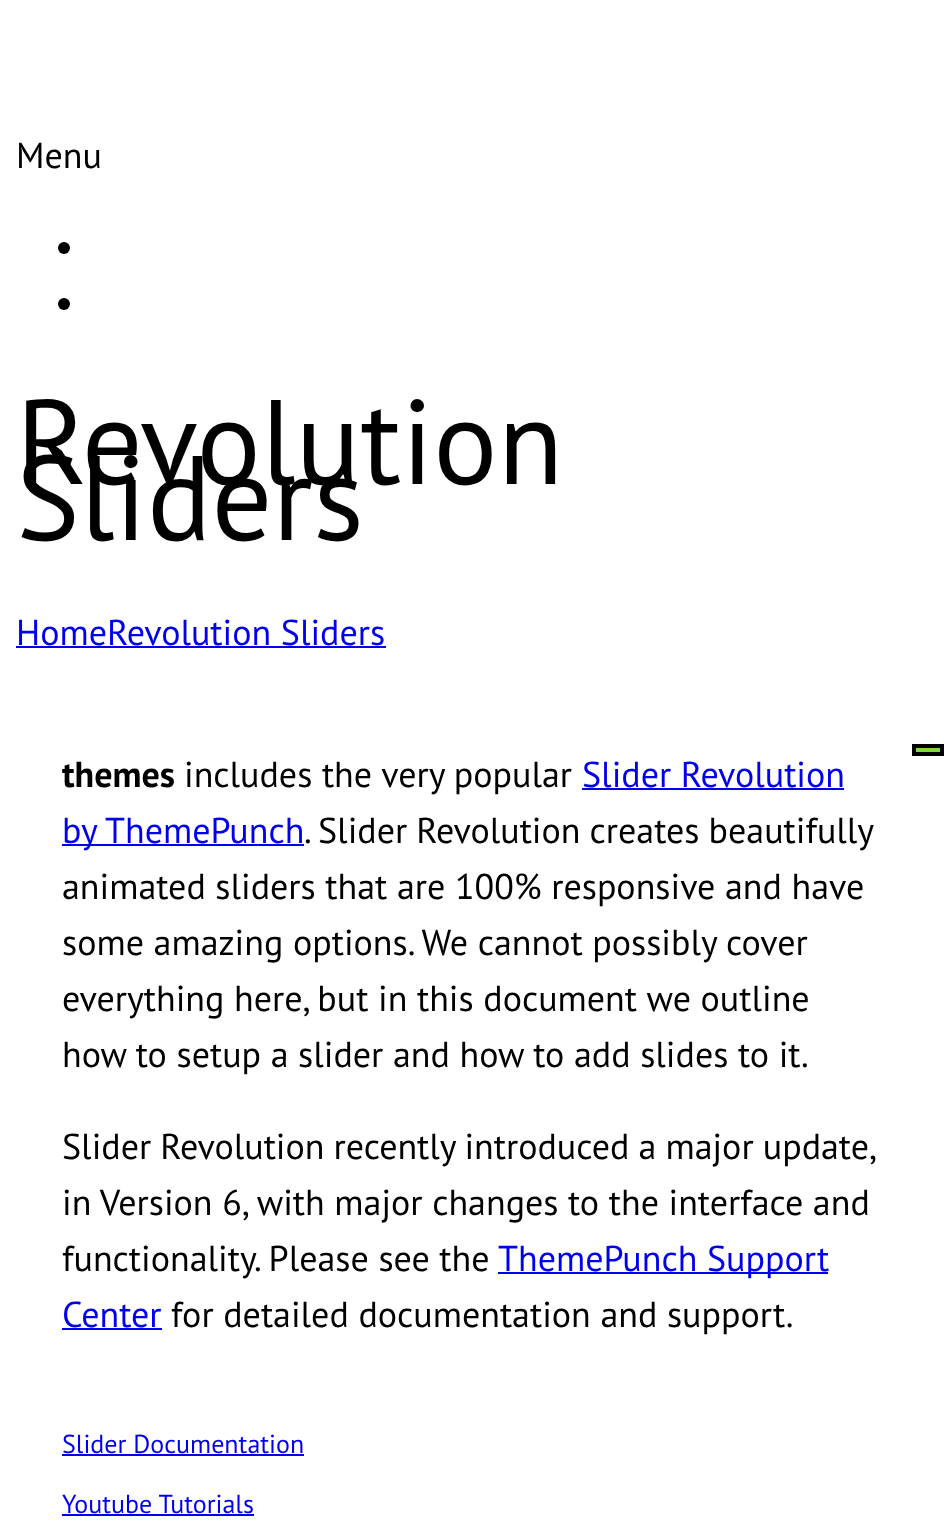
async function draw(canvas) {
	canvas.width = 944;
	canvas.height = 1524;
	const c = canvas.getContext('2d');
	c.miterLimit = 4;
	c.fontKerning = 'normal';

	c.fillStyle = '#fff';
	c.fillRect(0, 0, 944, 1524);
	c.font = '36px PT Sans';
	c.fillStyle = '#000';
	c.fillText('Menu', 16, 168);
	c.beginPath();
	c.arc(64, 248, 6, 0, 2 * Math.PI);
	c.fill();
	c.beginPath();
	c.arc(64, 304, 6, 0, 2 * Math.PI);
	c.fill();
	c.font = '120px PT Sans';
	c.fillText('Revolution', 16, 484);
	c.fillText('Sliders', 16, 540);
	c.font = '36px PT Sans';
	c.fillStyle = '#00e';
	c.fillText('HomeRevolution Sliders', 16, 645);
	c.fillRect(16, 646, 370, 2);
	c.fillStyle = '#81d742';
	c.beginPath();
	c.rect(914, 746, 28, 8);
	c.fill();
	c.strokeStyle = '#000';
	c.lineWidth = 4;
	c.stroke();
	c.font = 'bold 36px PT Sans';
	c.fillStyle = '#000';
	c.fillText('themes', 62, 787);
	c.font = '36px PT Sans';
	c.fillText('includes the very popular', 184, 787);
	c.fillStyle = '#00e';
	c.fillText('Slider Revolution', 582, 787);
	c.fillRect(582, 788, 262, 2);
	c.fillRect(62, 844, 242, 2);
	c.fillText('by ThemePunch', 62, 843);
	c.wordSpacing = '-0.5px';
	c.fillStyle = '#000';
	c.fillText('. Slider Revolution creates beautifully', 304, 843);
	c.wordSpacing = '0px';
	for (const [text, x, y] of [
		['animated sliders that are 100% responsive and have', 62, 899],
		['some amazing options. We cannot possibly cover', 62, 955],
		['everything here, but in this document we outline', 62, 1011],
		['how to setup a slider and how to add slides to it.', 62, 1067],
	]) {
		c.fillText(text, x, y);
	}
	c.wordSpacing = '-0.5px';
	c.fillText('Slider Revolution recently introduced a major update,', 62, 1159);
	c.wordSpacing = '0px';
	c.fillText('in Version 6, with major changes to the interface and', 62, 1215);
	c.fillText('functionality. Please see the', 62, 1271);
	c.fillStyle = '#00e';
	c.fillRect(498, 1272, 330, 2);
	c.fillText('ThemePunch Support', 498, 1271);
	c.fillText('Center', 62, 1327);
	c.fillRect(62, 1328, 100, 2);
	c.fillStyle = '#000';
	c.fillText('for detailed documentation and support.', 171, 1327);
	c.font = '26px PT Sans';
	c.fillStyle = '#00e';
	c.fillText('Slider Documentation', 62, 1453);
	c.fillRect(62, 1454, 242, 2);
	c.fillText('Youtube Tutorials', 62, 1513);
	c.fillRect(62, 1514, 192, 2);
}

draw(document.querySelector('canvas'));
